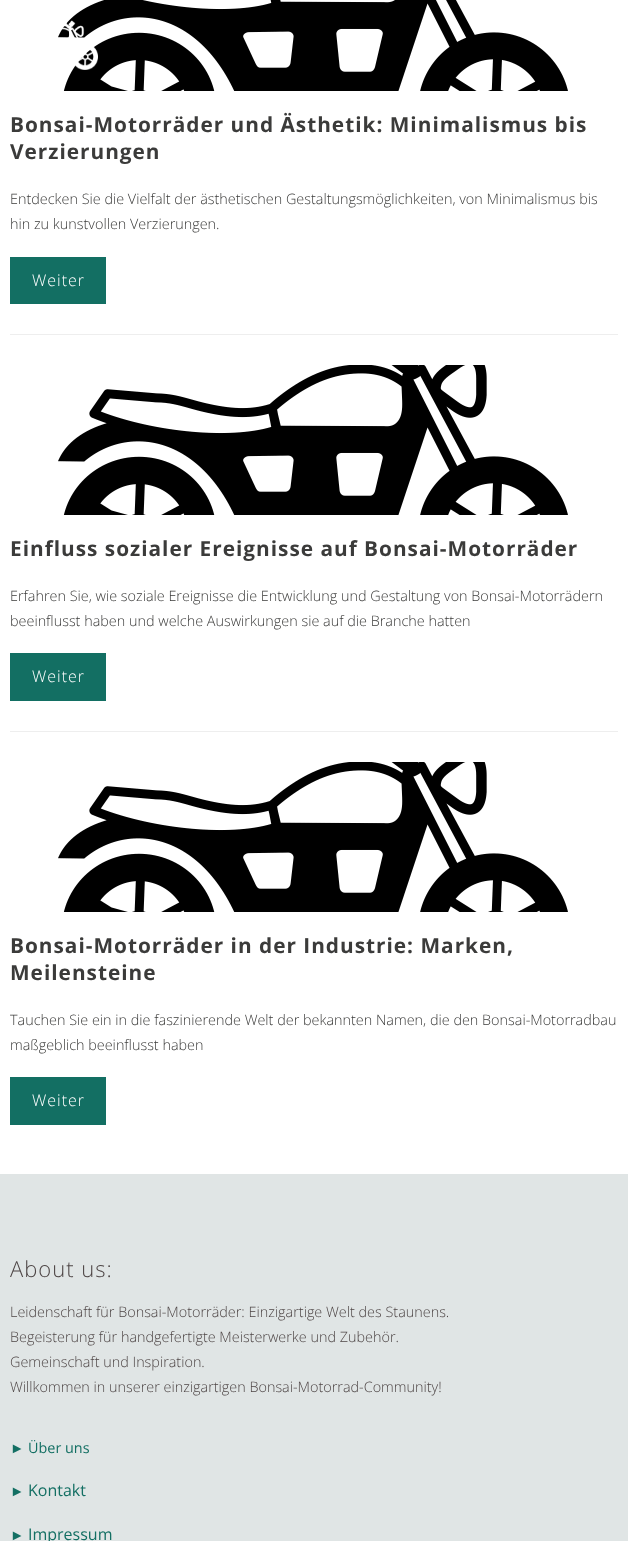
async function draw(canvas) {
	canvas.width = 628;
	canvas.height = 1541;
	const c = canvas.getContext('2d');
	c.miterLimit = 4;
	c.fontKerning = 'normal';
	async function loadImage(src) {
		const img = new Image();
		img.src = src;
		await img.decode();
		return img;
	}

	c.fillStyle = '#fff';
	c.fillRect(0, 0, 628, 1541);
	c.drawImage(await loadImage('img2.png'), 58, 0, 510, 91);
	c.drawImage(await loadImage('img1.png'), 61, 20, 37, 50);
	c.fillStyle = '#eee';
	c.fillRect(10, 334, 608, 1);
	c.letterSpacing = '1px';
	c.font = 'bold 20.8px Open Sans';
	c.fillStyle = '#3b3b3a';
	c.fillText('Bonsai-Motorräder und Ästhetik: Minimalismus bis', 10, 132);
	c.fillText('Verzierungen', 10, 159);
	c.letterSpacing = '0px';
	c.font = '300 14.4px Open Sans';
	c.fillText('Entdecken Sie die Vielfalt der ästhetischen Gestaltungsmöglichkeiten, von Minimalismus bis', 10, 204);
	c.fillText('hin zu kunstvollen Verzierungen.', 10, 229);
	c.fillStyle = '#136f63';
	c.fillRect(10, 257, 96, 47);
	c.letterSpacing = '1px';
	c.font = '300 16px Open Sans';
	c.fillStyle = '#fff';
	c.fillText('Weiter', 32, 286);
	c.fillStyle = '#eee';
	c.fillRect(10, 731, 608, 1);
	c.drawImage(await loadImage('img3.png'), 58, 365, 510, 150);
	c.font = 'bold 20.8px Open Sans';
	c.fillStyle = '#3b3b3a';
	c.fillText('Einfluss sozialer Ereignisse auf Bonsai-Motorräder', 10, 556);
	c.letterSpacing = '0px';
	c.font = '300 14.4px Open Sans';
	c.fillText('Erfahren Sie, wie soziale Ereignisse die Entwicklung und Gestaltung von Bonsai-Motorrädern', 10, 601);
	c.fillText('beeinflusst haben und welche Auswirkungen sie auf die Branche hatten', 10, 626);
	c.fillStyle = '#136f63';
	c.fillRect(10, 653, 96, 48);
	c.letterSpacing = '1px';
	c.font = '300 16px Open Sans';
	c.fillStyle = '#fff';
	c.fillText('Weiter', 32, 682);
	c.drawImage(await loadImage('img3.png'), 58, 762, 510, 150);
	c.font = 'bold 20.8px Open Sans';
	c.fillStyle = '#3b3b3a';
	c.fillText('Bonsai-Motorräder in der Industrie: Marken,', 10, 953);
	c.fillText('Meilensteine', 10, 980);
	c.letterSpacing = '0px';
	c.font = '300 14.4px Open Sans';
	c.fillText('Tauchen Sie ein in die faszinierende Welt der bekannten Namen, die den Bonsai-Motorradbau', 10, 1025);
	c.fillText('maßgeblich beeinflusst haben', 10, 1050);
	c.fillStyle = '#136f63';
	c.fillRect(10, 1077, 96, 48);
	c.letterSpacing = '1px';
	c.font = '300 16px Open Sans';
	c.fillStyle = '#fff';
	c.fillText('Weiter', 32, 1106);
	c.fillStyle = '#e0e5e5';
	c.fillRect(0, 1174, 628, 367);
	c.font = '300 22px Open Sans';
	c.fillStyle = '#4e4646';
	c.fillText('About us:', 10, 1277);
	c.letterSpacing = '0px';
	c.font = '300 14.4px Open Sans';
	for (const [text, x, y] of [
		['Leidenschaft für Bonsai-Motorräder: Einzigartige Welt des Staunens.', 10, 1317],
		['Begeisterung für handgefertigte Meisterwerke und Zubehör.', 10, 1342],
		['Gemeinschaft und Inspiration.', 10, 1367],
		['Willkommen in unserer einzigartigen Bonsai-Motorrad-Community!', 10, 1392],
	]) {
		c.fillText(text, x, y);
	}
	c.font = '14.4px Liberation Sans';
	c.fillStyle = '#136f63';
	c.fillText('►', 10, 1453);
	c.font = '14.4px Open Sans';
	c.fillText('Über uns', 28, 1453);
	c.font = '14.4px Liberation Sans';
	c.fillText('►', 10, 1496);
	c.font = '16px Open Sans';
	c.fillText('Kontakt', 28, 1496);
	c.font = '14.4px Liberation Sans';
	c.fillText('►', 10, 1540);
	c.font = '16px Open Sans';
	c.fillText('Impressum', 28, 1540);
}

draw(document.querySelector('canvas'));
